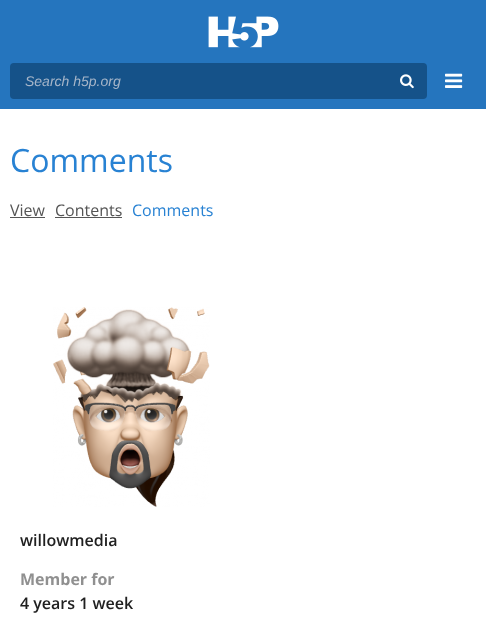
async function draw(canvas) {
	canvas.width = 486;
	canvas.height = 618;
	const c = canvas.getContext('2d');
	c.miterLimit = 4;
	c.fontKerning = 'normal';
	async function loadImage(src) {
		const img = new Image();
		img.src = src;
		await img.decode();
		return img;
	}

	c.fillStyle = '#fff';
	c.fillRect(0, 0, 486, 618);
	c.fillStyle = '#2575be';
	c.fillRect(0, 0, 486, 109);
	c.drawImage(await loadImage('img1.png'), 208, 16, 71, 32);
	c.fillStyle = '#155289';
	c.beginPath();
	c.roundRect(10, 63, 417, 36, 4);
	c.fill();
	c.font = 'italic 14px Liberation Sans';
	c.fillStyle = '#a7b6c9';
	c.fillText('Search h5p.org', 25, 86);
	c.drawImage(await loadImage('img2.png'), 400, 74, 14, 15);
	c.drawImage(await loadImage('img3.png'), 445, 73, 18, 15);
	c.font = '32px Open Sans';
	c.fillStyle = '#2882d3';
	c.fillText('Comments', 10, 172);
	c.font = '16px Open Sans';
	c.fillStyle = '#555';
	c.fillText('View', 10, 216);
	c.fillRect(10, 217, 35, 1);
	c.fillText('Contents', 55, 216);
	c.fillRect(55, 217, 67, 1);
	c.fillStyle = '#2882d3';
	c.fillText('Comments', 132, 216);
	c.drawImage(await loadImage('img4.png'), 53, 307, 157, 200);
	c.font = '600 16px Open Sans';
	c.fillStyle = '#202020';
	c.fillText('willowmedia', 20, 546);
	c.font = 'bold 16px Open Sans';
	c.fillStyle = '#909090';
	c.fillText('Member for', 20, 585);
	c.font = '600 16px Open Sans';
	c.fillStyle = '#202020';
	c.fillText('4 years 1 week', 20, 609);
}

draw(document.querySelector('canvas'));
